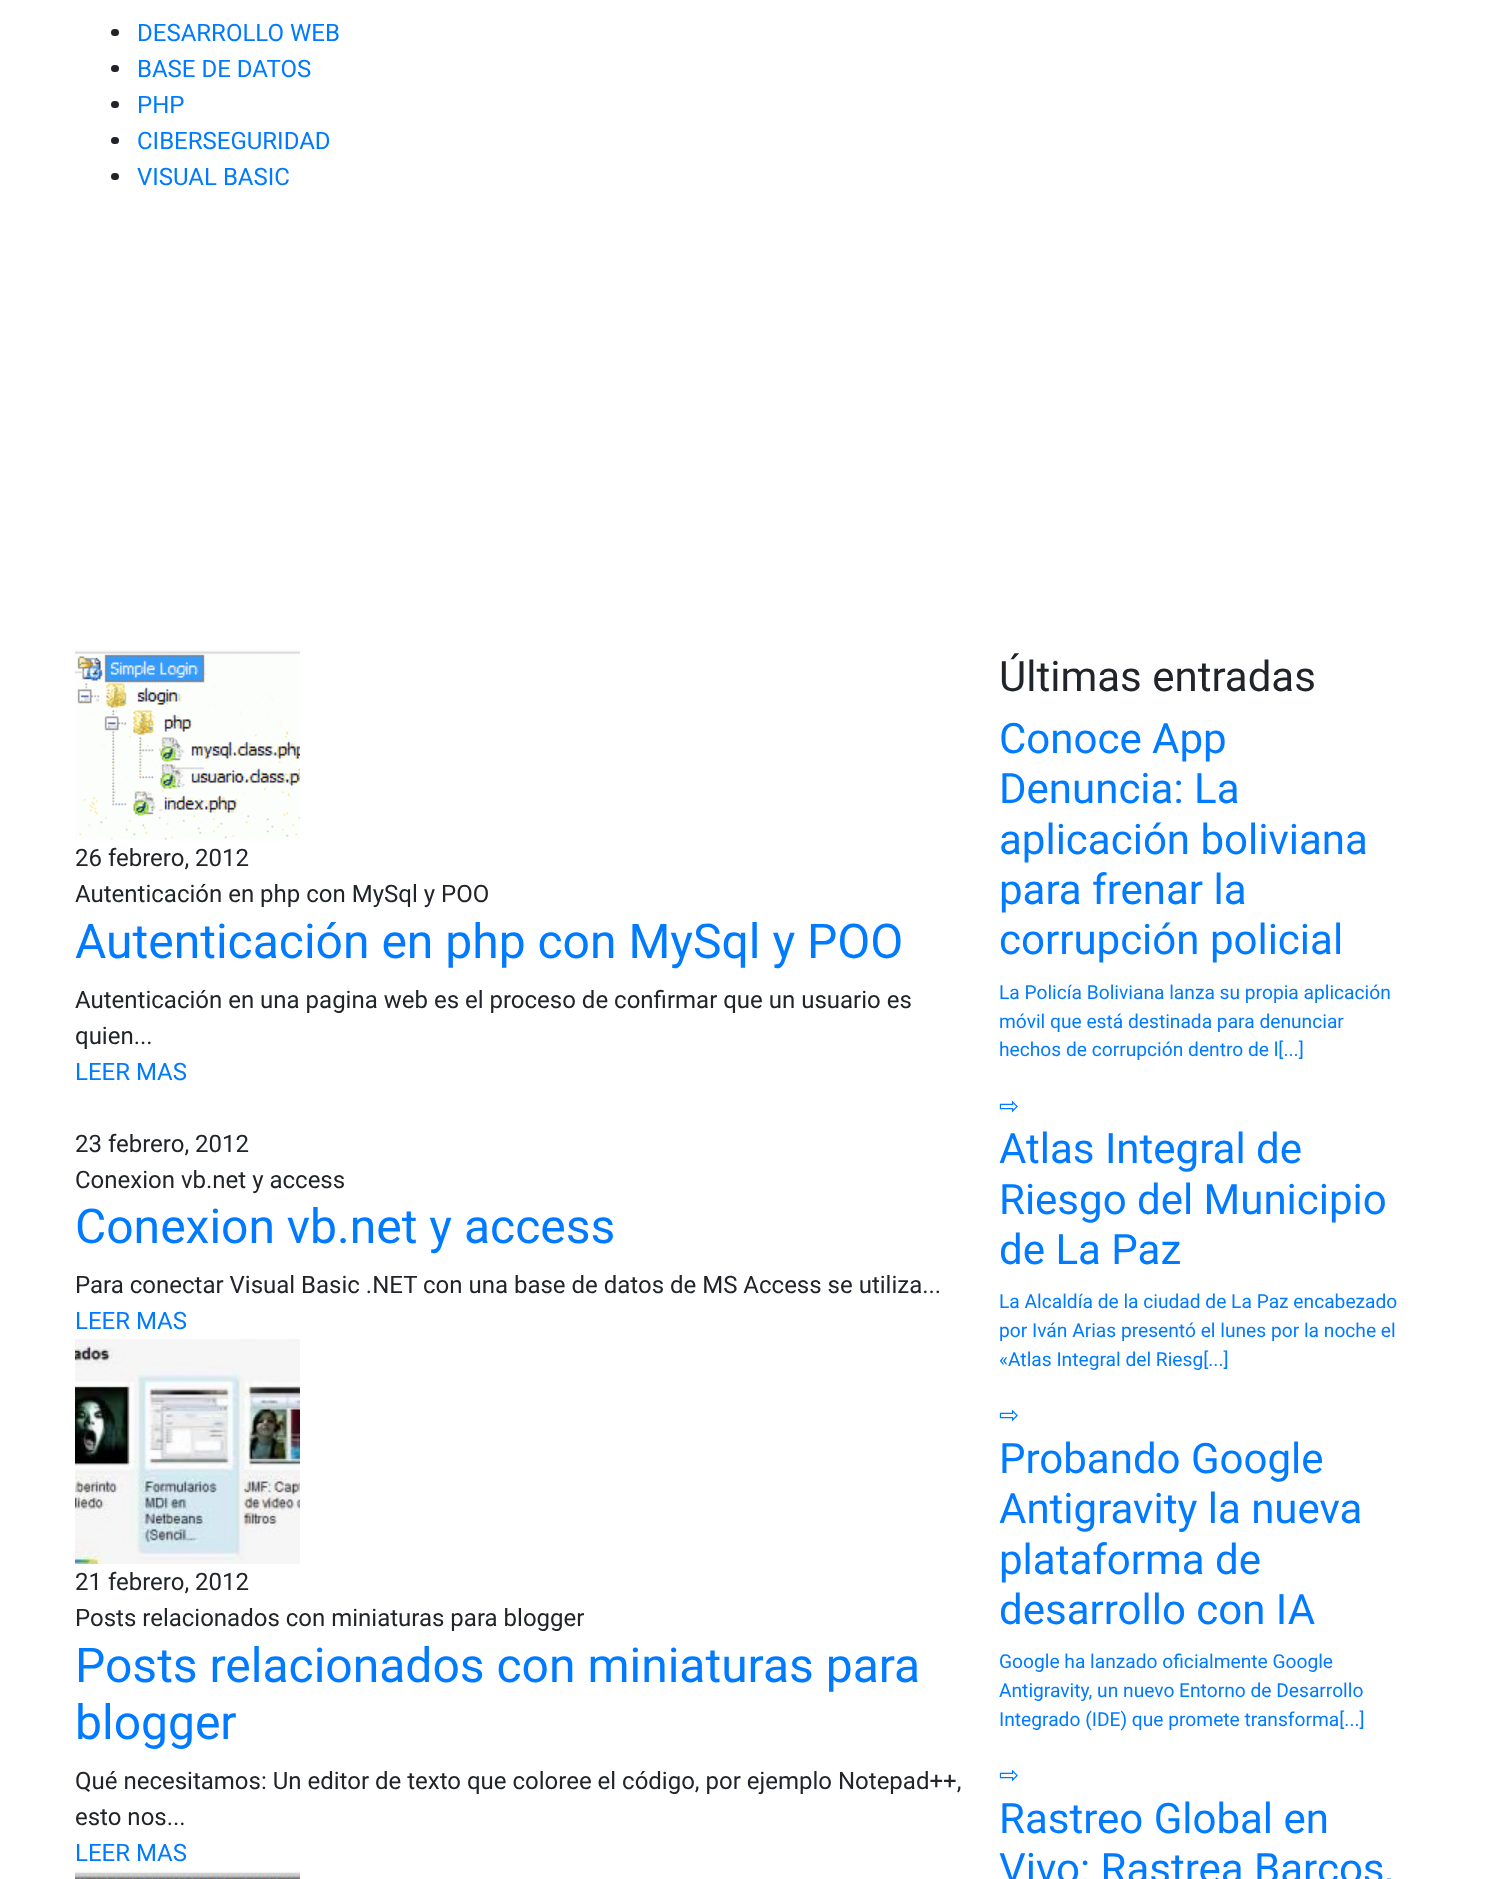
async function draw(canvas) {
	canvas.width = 1503;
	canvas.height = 1879;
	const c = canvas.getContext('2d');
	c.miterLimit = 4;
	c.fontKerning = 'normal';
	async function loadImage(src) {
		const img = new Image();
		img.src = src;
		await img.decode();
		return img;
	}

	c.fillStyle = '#fff';
	c.fillRect(0, 0, 1503, 1879);
	c.fillStyle = '#212529';
	c.beginPath();
	c.roundRect(111, 29, 8, 7, 3.5);
	c.fill();
	c.font = '24px Roboto';
	c.fillStyle = '#007bff';
	c.fillText('DESARROLLO WEB', 137, 41);
	c.fillStyle = '#212529';
	c.beginPath();
	c.roundRect(111, 65, 8, 7, 3.5);
	c.fill();
	c.fillStyle = '#007bff';
	c.fillText('BASE DE DATOS', 137, 77);
	c.fillStyle = '#212529';
	c.beginPath();
	c.roundRect(111, 101, 8, 7, 3.5);
	c.fill();
	c.fillStyle = '#007bff';
	c.fillText('PHP', 137, 113);
	c.fillStyle = '#212529';
	c.beginPath();
	c.roundRect(111, 137, 8, 7, 3.5);
	c.fill();
	c.fillStyle = '#007bff';
	c.fillText('CIBERSEGURIDAD', 137, 149);
	c.fillStyle = '#212529';
	c.beginPath();
	c.roundRect(111, 173, 8, 7, 3.5);
	c.fill();
	c.fillStyle = '#007bff';
	c.fillText('VISUAL BASIC', 137, 185);
	c.drawImage(await loadImage('img1.png'), 75, 650, 225, 190);
	c.fillStyle = '#212529';
	c.fillText('26 febrero, 2012', 75, 866);
	c.fillText('Autenticación en php con MySql y POO', 75, 902);
	c.font = '48px Roboto';
	c.fillStyle = '#007bff';
	c.fillText('Autenticación en php con MySql y POO', 75, 958);
	c.font = '24px Roboto';
	c.fillStyle = '#212529';
	c.fillText('Autenticación en una pagina web es el proceso de confirmar que un usuario es', 75, 1008);
	c.fillText('quien...', 75, 1044);
	c.fillStyle = '#007bff';
	c.fillText('LEER MAS', 75, 1080);
	c.fillStyle = '#212529';
	c.fillText('23 febrero, 2012', 75, 1152);
	c.fillText('Conexion vb.net y access', 75, 1188);
	c.font = '48px Roboto';
	c.fillStyle = '#007bff';
	c.fillText('Conexion vb.net y access', 75, 1243);
	c.font = '24px Roboto';
	c.fillStyle = '#212529';
	c.fillText('Para conectar Visual Basic .NET con una base de datos de MS Access se utiliza...', 75, 1293);
	c.fillStyle = '#007bff';
	c.fillText('LEER MAS', 75, 1329);
	c.drawImage(await loadImage('img2.png'), 75, 1339, 225, 225);
	c.fillStyle = '#212529';
	c.fillText('21 febrero, 2012', 75, 1590);
	c.fillText('Posts relacionados con miniaturas para blogger', 75, 1626);
	c.font = '48px Roboto';
	c.fillStyle = '#007bff';
	c.fillText('Posts relacionados con miniaturas para', 75, 1682);
	c.fillText('blogger', 75, 1739);
	c.font = '24px Roboto';
	c.fillStyle = '#212529';
	c.fillText('Qué necesitamos: Un editor de texto que coloree el código, por ejemplo Notepad++,', 75, 1789);
	c.fillText('esto nos...', 75, 1825);
	c.fillStyle = '#007bff';
	c.fillText('LEER MAS', 75, 1861);
	c.drawImage(await loadImage('img3.png'), 75, 1871, 225, 8);
	c.font = '42px Roboto';
	c.fillStyle = '#212529';
	c.fillText('Últimas entradas', 999, 691);
	c.fillStyle = '#007bff';
	for (const [text, x, y] of [
		['Conoce App', 999, 753],
		['Denuncia: La', 999, 803],
		['aplicación boliviana', 999, 854],
		['para frenar la', 999, 904],
		['corrupción policial', 999, 954],
	]) {
		c.fillText(text, x, y);
	}
	c.font = '19.2px Roboto';
	for (const [text, x, y] of [
		['La Policía Boliviana lanza su propia aplicación', 999, 999],
		['móvil que está destinada para denunciar', 999, 1028],
		['hechos de corrupción dentro de l[...]', 999, 1056],
	]) {
		c.fillText(text, x, y);
	}
	c.font = '24px DejaVu Sans';
	c.fillText('⇨', 999, 1114);
	c.font = '42px Roboto';
	for (const [text, x, y] of [
		['Atlas Integral de', 999, 1163],
		['Riesgo del Municipio', 999, 1214],
		['de La Paz', 999, 1264],
	]) {
		c.fillText(text, x, y);
	}
	c.font = '19.2px Roboto';
	for (const [text, x, y] of [
		['La Alcaldía de la ciudad de La Paz encabezado', 999, 1308],
		['por Iván Arias presentó el lunes por la noche el', 999, 1337],
		['«Atlas Integral del Riesg[...]', 999, 1366],
	]) {
		c.fillText(text, x, y);
	}
	c.font = '24px DejaVu Sans';
	c.fillText('⇨', 999, 1423);
	c.font = '42px Roboto';
	for (const [text, x, y] of [
		['Probando Google', 999, 1473],
		['Antigravity la nueva', 999, 1523],
		['plataforma de', 999, 1574],
		['desarrollo con IA', 999, 1624],
	]) {
		c.fillText(text, x, y);
	}
	c.font = '19.2px Roboto';
	for (const [text, x, y] of [
		['Google ha lanzado oficialmente Google', 999, 1668],
		['Antigravity, un nuevo Entorno de Desarrollo', 999, 1697],
		['Integrado (IDE) que promete transforma[...]', 999, 1726],
	]) {
		c.fillText(text, x, y);
	}
	c.font = '24px DejaVu Sans';
	c.fillText('⇨', 999, 1783);
	c.font = '42px Roboto';
	c.fillText('Rastreo Global en', 999, 1833);
	c.fillText('Vivo: Rastrea Barcos,', 999, 1883);
}

draw(document.querySelector('canvas'));
